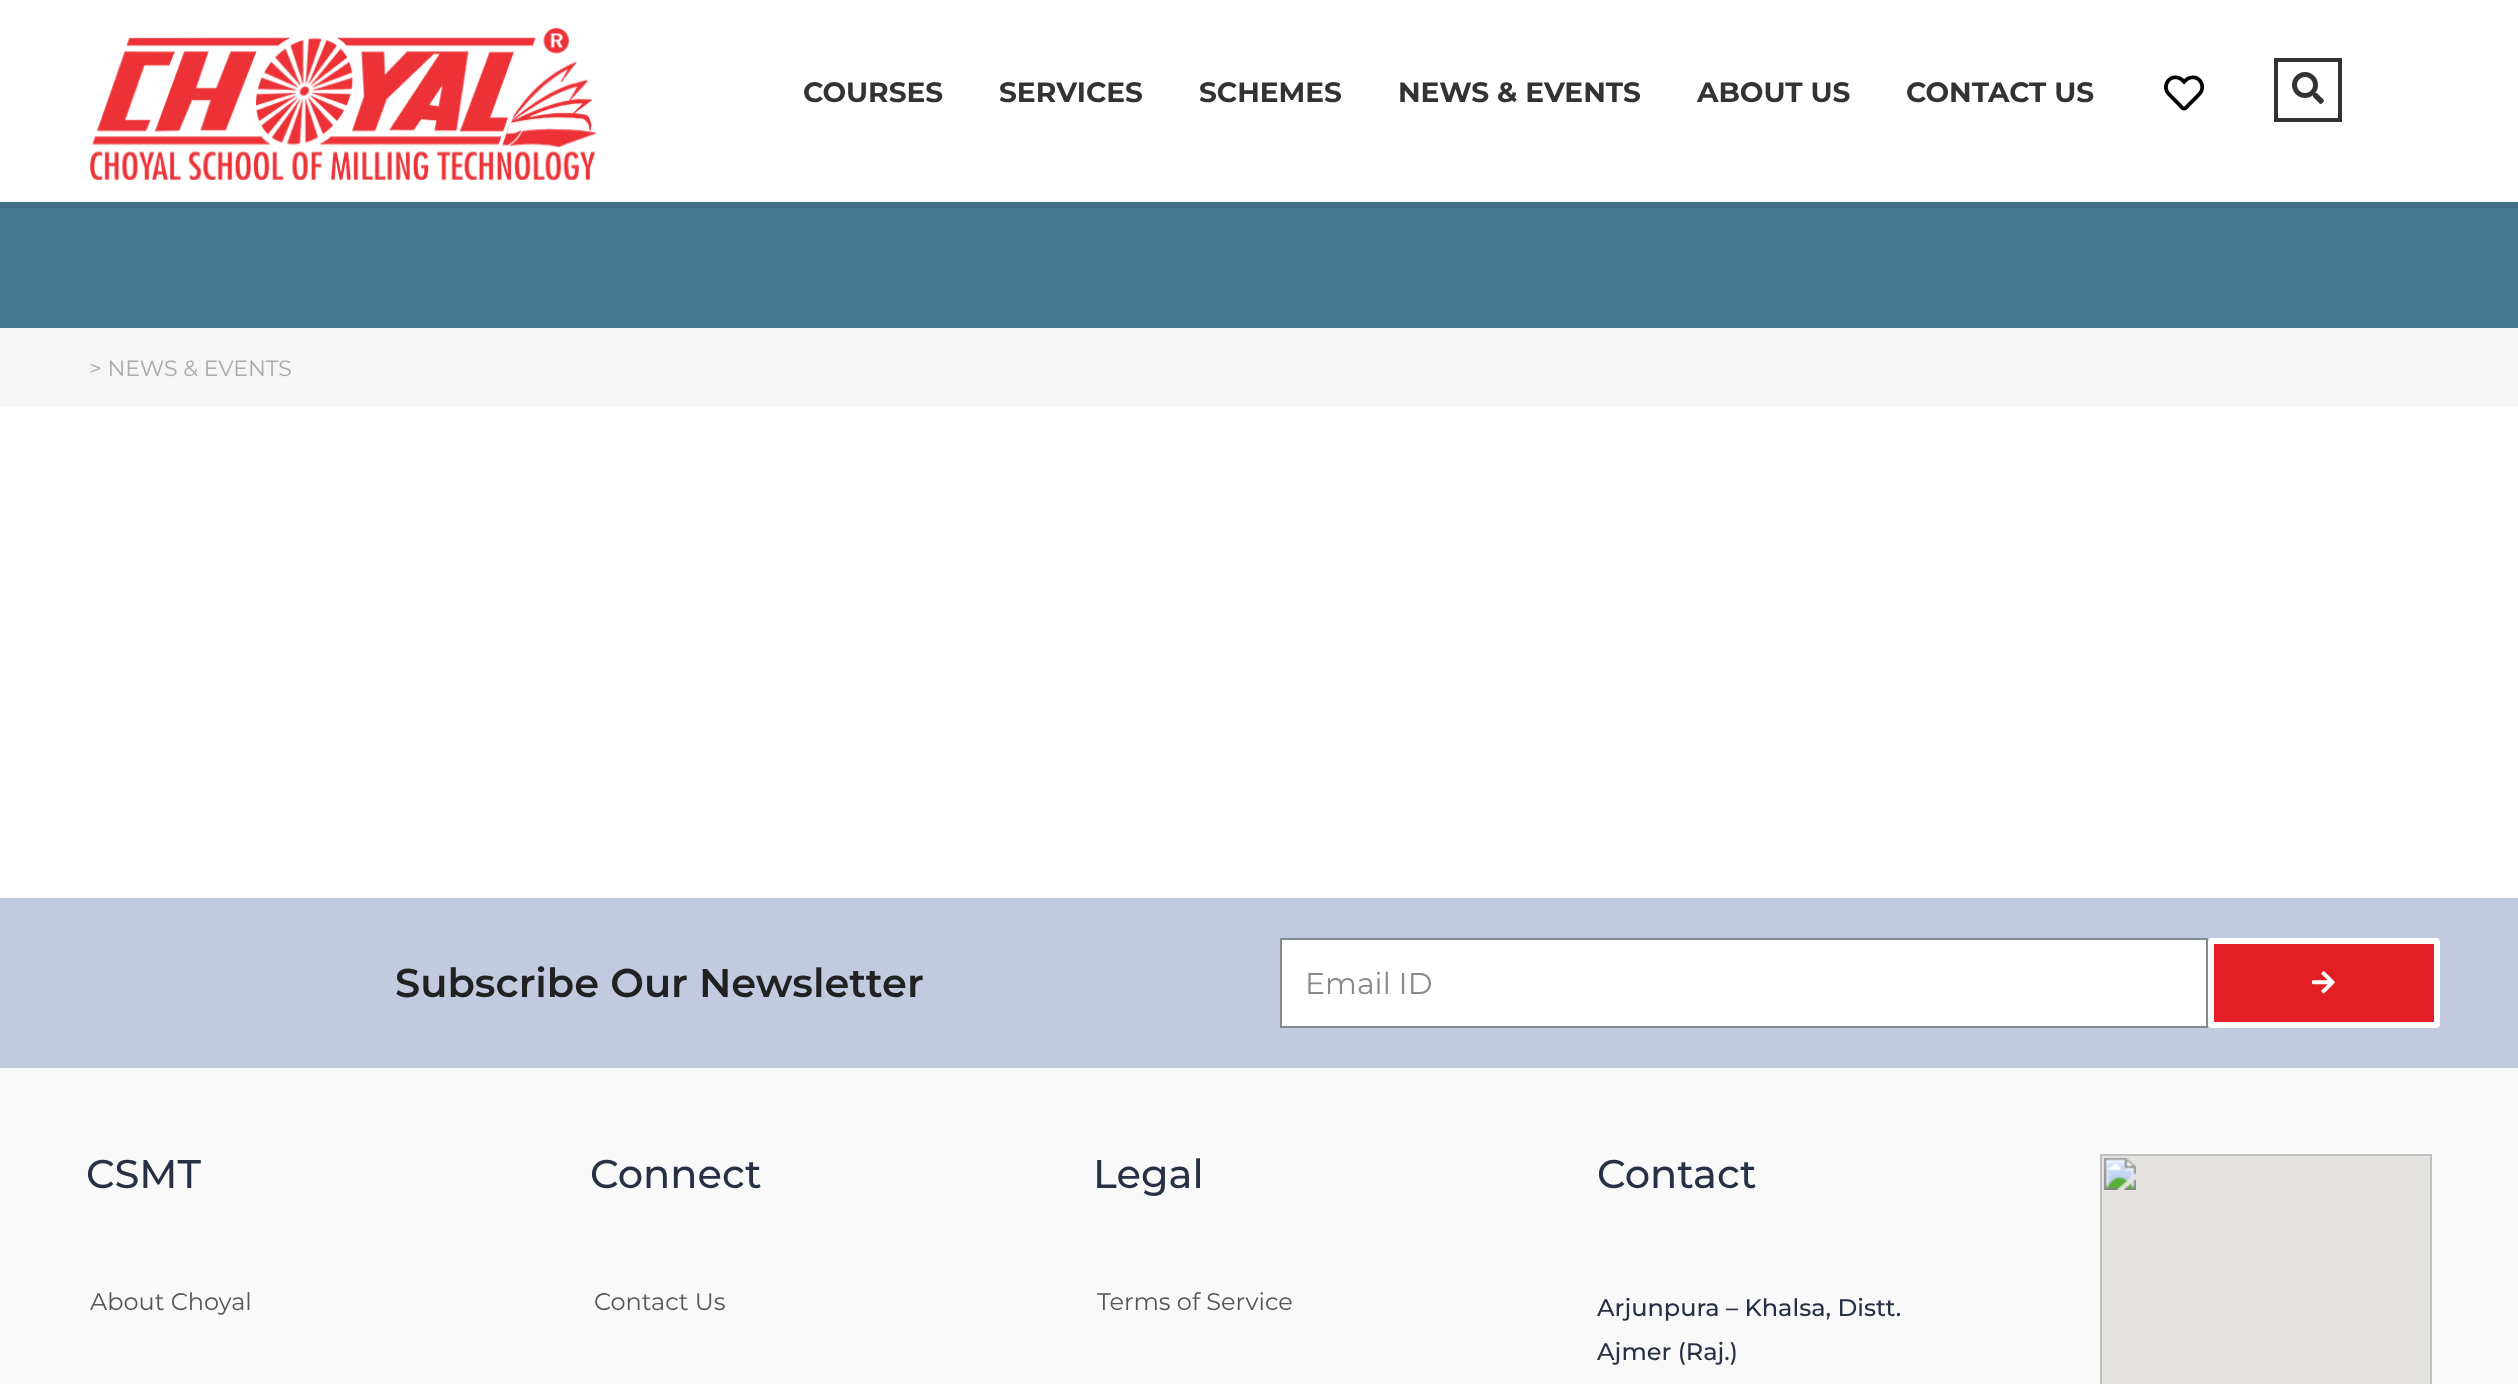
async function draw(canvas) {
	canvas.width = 2518;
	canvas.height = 1384;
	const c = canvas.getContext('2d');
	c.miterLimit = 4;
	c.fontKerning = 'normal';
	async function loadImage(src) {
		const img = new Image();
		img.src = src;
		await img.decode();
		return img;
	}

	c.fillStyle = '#fff';
	c.fillRect(0, 0, 2518, 1384);
	c.drawImage(await loadImage('img1.png'), 90, 28, 506, 152);
	c.font = 'bold 28px Montserrat';
	c.fillStyle = '#333';
	for (const [text, x, y] of [
		['COURSES', 803, 102],
		['SERVICES', 999, 102],
		['SCHEMES', 1199, 102],
		['NEWS & EVENTS', 1398, 102],
		['ABOUT US', 1697, 102],
		['CONTACT US', 1906, 102],
	]) {
		c.fillText(text, x, y);
	}
	c.drawImage(await loadImage('img2.png'), 2164, 75, 41, 36);
	c.strokeStyle = '#333';
	c.lineWidth = 4;
	c.strokeRect(2276, 60, 64, 60);
	c.drawImage(await loadImage('img3.png'), 2292, 72, 32, 32);
	for (const [x, y, w, h, color] of [
		[0, 202, 2518, 6, '#3e6d83'],
		[0, 208, 2518, 120, '#457992'],
		[0, 328, 2518, 76, '#f6f6f6'],
		[0, 404, 2518, 2, '#f0f2f5'],
	]) {
		c.fillStyle = color;
		c.fillRect(x, y, w, h);
	}
	c.font = '22px Montserrat';
	c.fillStyle = '#aaa';
	c.fillText('> NEWS & EVENTS', 89, 376);
	c.fillStyle = '#c1cadf';
	c.fillRect(0, 898, 2518, 170);
	c.font = '600 40px Montserrat';
	c.fillStyle = '#212121';
	c.fillText('Subscribe Our Newsletter', 395, 997);
	c.fillStyle = '#fff';
	c.beginPath();
	c.rect(1281, 939, 926, 88);
	c.fill();
	c.strokeStyle = '#818a91';
	c.lineWidth = 2;
	c.stroke();
	c.font = '30px Montserrat';
	c.fillStyle = '#87898a';
	c.fillText('Email ID', 1305, 994);
	c.fillStyle = '#e31e24';
	c.beginPath();
	c.roundRect(2211, 941, 226, 84, 1);
	c.fill();
	c.strokeStyle = '#fff';
	c.lineWidth = 6;
	c.stroke();
	c.drawImage(await loadImage('img4.png'), 2312, 971, 23, 23);
	c.fillStyle = '#f9f9f9';
	c.fillRect(0, 1068, 2518, 316);
	c.font = '500 40px Montserrat';
	c.fillStyle = '#273044';
	c.fillText('CSMT', 86, 1188);
	c.font = '24px Montserrat';
	c.fillStyle = '#555';
	c.fillText('About Choyal', 90, 1310);
	c.font = '500 40px Montserrat';
	c.fillStyle = '#273044';
	c.fillText('Connect', 590, 1188);
	c.font = '24px Montserrat';
	c.fillStyle = '#555';
	c.fillText('Contact Us', 594, 1310);
	c.font = '500 40px Montserrat';
	c.fillStyle = '#273044';
	c.fillText('Legal', 1093, 1188);
	c.font = '24px Montserrat';
	c.fillStyle = '#555';
	c.fillText('Terms of Service', 1097, 1310);
	c.font = '500 40px Montserrat';
	c.fillStyle = '#273044';
	c.fillText('Contact', 1597, 1188);
	c.font = '500 24px Montserrat';
	c.fillText('Arjunpura – Khalsa, Distt.', 1597, 1316);
	c.fillText('Ajmer (Raj.)', 1597, 1360);
	c.drawImage(await loadImage('img5.png'), 2100, 1154, 332, 230);
}

draw(document.querySelector('canvas'));
